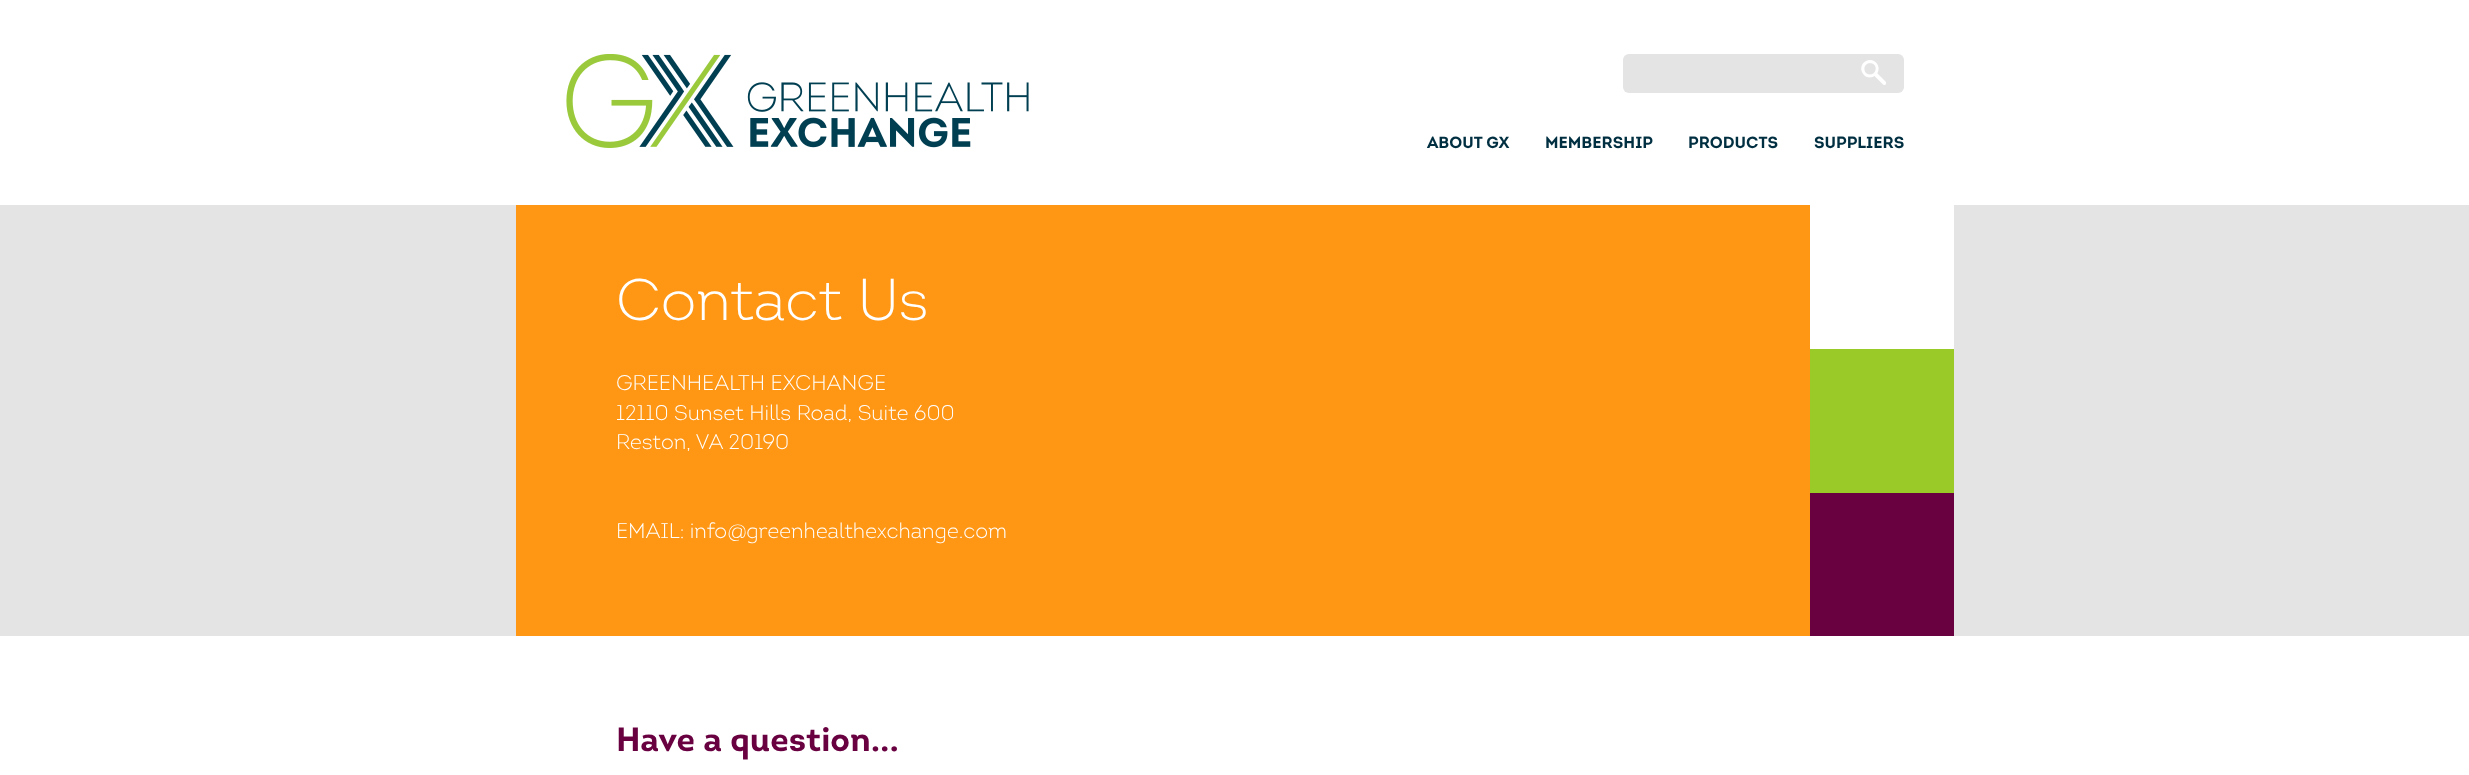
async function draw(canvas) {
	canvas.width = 2469;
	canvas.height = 775;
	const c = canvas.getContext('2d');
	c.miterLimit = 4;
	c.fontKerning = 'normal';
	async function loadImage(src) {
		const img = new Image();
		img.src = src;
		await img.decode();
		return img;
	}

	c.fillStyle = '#fff';
	c.fillRect(0, 0, 2469, 775);
	c.drawImage(await loadImage('img1.png'), 566, 54, 463, 94);
	c.fillStyle = '#e4e4e4';
	c.beginPath();
	c.roundRect(1623, 54, 281, 39, 6);
	c.fill();
	c.drawImage(await loadImage('img2.png'), 1861, 60, 25, 25);
	c.font = 'bold 16.25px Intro';
	c.fillStyle = '#002f41';
	for (const [text, x, y] of [
		['ABOUT GX', 1427, 148],
		['MEMBERSHIP', 1545, 148],
		['PRODUCTS', 1688, 148],
		['SUPPLIERS', 1814, 148],
	]) {
		c.fillText(text, x, y);
	}
	c.fillStyle = '#e4e4e4';
	c.fillRect(0, 205, 2469, 431);
	c.fillStyle = '#ff9614';
	c.fillRect(516, 205, 1294, 431);
	c.font = '300 58.75px Intro';
	c.fillStyle = '#fff';
	c.fillText('Contact Us', 616, 320);
	c.font = '300 21.25px Intro';
	for (const [text, x, y] of [
		['GREENHEALTH EXCHANGE', 616, 390],
		['12110 Sunset Hills Road, Suite 600', 616, 420],
		['Reston, VA 20190', 616, 449],
		['EMAIL: info@greenhealthexchange.com', 616, 538],
	]) {
		c.fillText(text, x, y);
	}
	for (const [x, y, w, h, color] of [
		[1810, 205, 144, 144, '#fff'],
		[1810, 349, 144, 144, '#99ca28'],
		[1810, 493, 144, 143, '#690040'],
	]) {
		c.fillStyle = color;
		c.fillRect(x, y, w, h);
	}
	c.font = 'bold 33.75px Intro';
	c.fillText('Have a question...', 616, 751);
}

draw(document.querySelector('canvas'));
